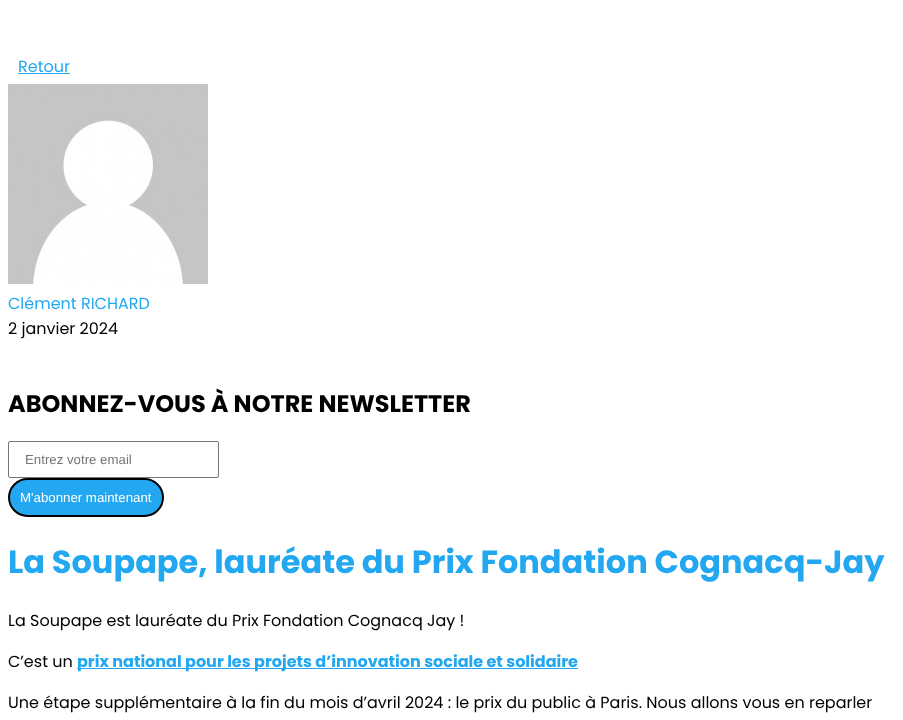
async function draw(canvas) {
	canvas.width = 903;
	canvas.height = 720;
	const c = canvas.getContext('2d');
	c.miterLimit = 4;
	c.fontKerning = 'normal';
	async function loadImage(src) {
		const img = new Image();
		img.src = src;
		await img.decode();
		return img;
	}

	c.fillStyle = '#fff';
	c.fillRect(0, 0, 903, 720);
	c.font = '16px Poppins';
	c.fillStyle = '#22a7f0';
	c.fillText('Retour', 18, 72);
	c.fillRect(18, 73, 52, 1);
	c.drawImage(await loadImage('img1.png'), 8, 84, 200, 200);
	c.fillText('Clément RICHARD', 8, 309);
	c.fillStyle = '#000';
	c.fillText('2 janvier 2024', 8, 334);
	c.font = 'bold 24px Poppins';
	c.fillText('ABONNEZ-VOUS À NOTRE NEWSLETTER', 8, 412);
	c.beginPath();
	c.roundRect(8.5, 441.5, 210, 36, 1.5);
	c.strokeStyle = '#767676';
	c.stroke();
	c.font = '13.25px Liberation Sans';
	c.fillStyle = '#757575';
	c.fillText('Entrez votre email', 25, 464);
	c.fillStyle = '#22a7f0';
	c.beginPath();
	c.roundRect(9, 479, 154, 37, 18.5);
	c.fill();
	c.strokeStyle = '#000';
	c.lineWidth = 2;
	c.stroke();
	c.fillStyle = '#fff';
	c.fillText('M\'abonner maintenant', 20, 502);
	c.font = 'bold 32px Poppins';
	c.fillStyle = '#22a7f0';
	c.fillText('La Soupape, lauréate du Prix Fondation Cognacq-Jay', 8, 573);
	c.font = '16px Poppins';
	c.fillStyle = '#000';
	c.fillText('La Soupape est lauréate du Prix Fondation Cognacq Jay !', 8, 626);
	c.fillText('C’est un', 8, 667);
	c.fillStyle = '#22a7f0';
	c.fillRect(77, 668, 501, 1);
	c.font = 'bold 16px Poppins';
	c.fillText('prix national pour les projets d’innovation sociale et solidaire', 77, 667);
	c.font = '16px Poppins';
	c.fillStyle = '#000';
	c.fillText('Une étape supplémentaire à la fin du mois d’avril 2024 : le prix du public à Paris. Nous allons vous en reparler', 8, 708);
}

draw(document.querySelector('canvas'));
